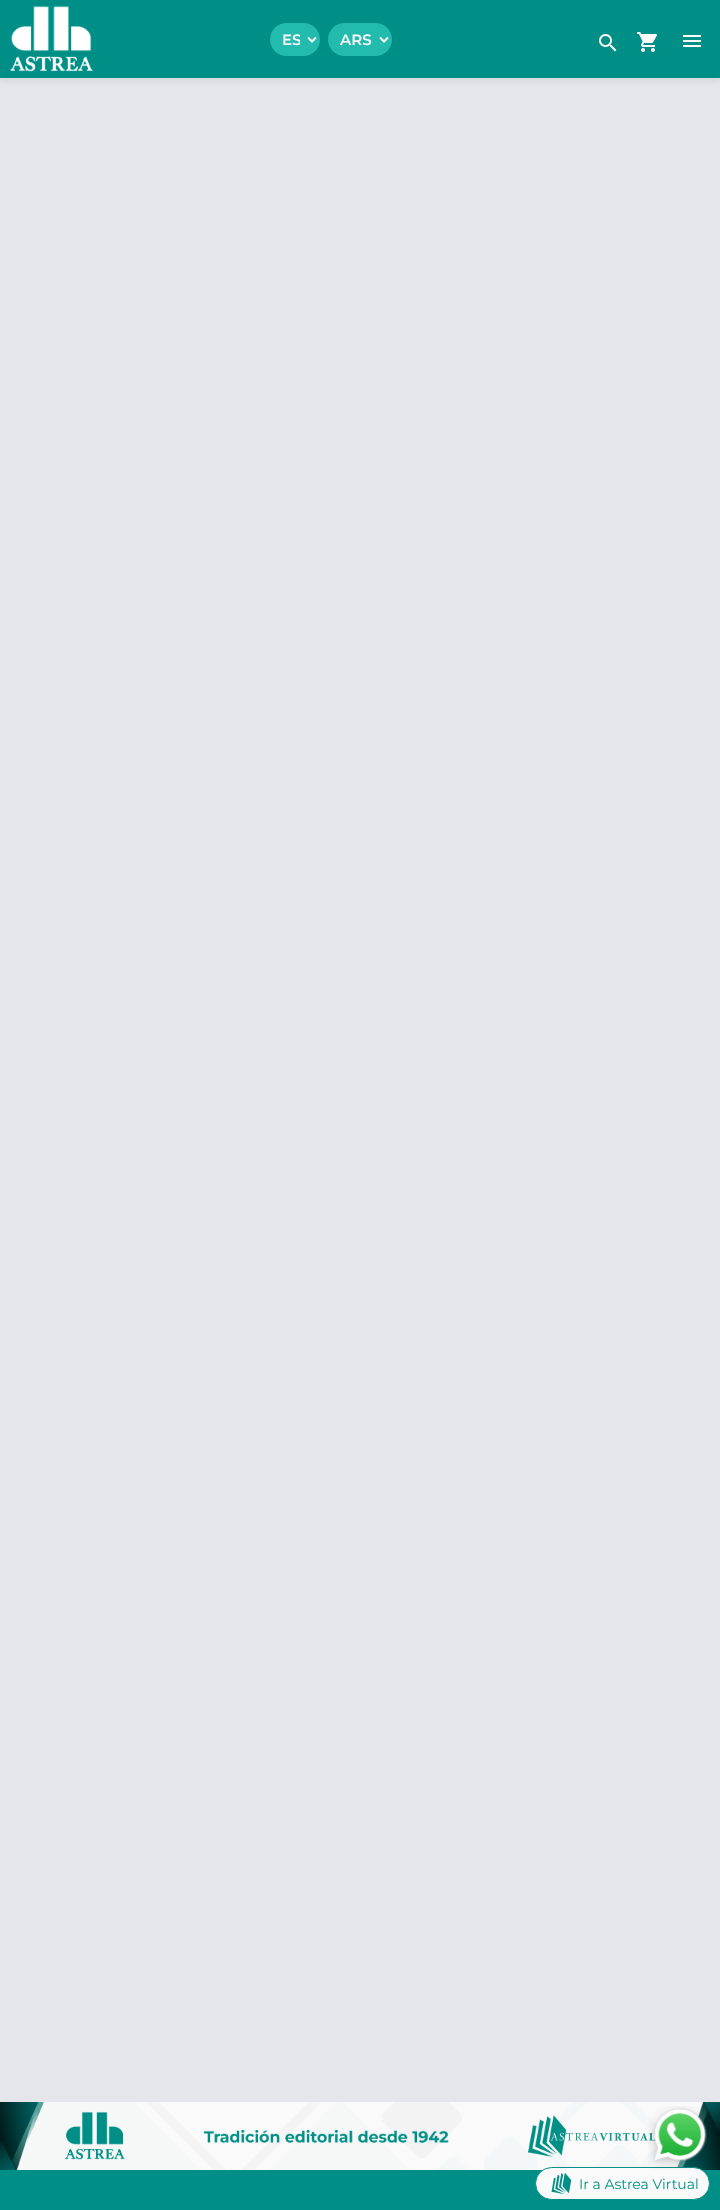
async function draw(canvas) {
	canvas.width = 720;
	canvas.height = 2210;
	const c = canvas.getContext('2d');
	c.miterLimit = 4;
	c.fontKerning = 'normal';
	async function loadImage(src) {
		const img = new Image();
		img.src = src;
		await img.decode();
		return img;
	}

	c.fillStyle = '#e4e6eb';
	c.fillRect(0, 0, 720, 2210);
	c.fillStyle = '#0000000f';
	c.filter = 'blur(3px)';
	c.beginPath();
	c.rect(0, 3, 720, 78);
	c.fill();
	c.filter = 'none';
	c.fillStyle = '#008f86';
	c.fillRect(0, 0, 720, 78);
	c.drawImage(await loadImage('img1.png'), 10, 6, 83, 66);
	c.fillStyle = '#23bbad';
	c.beginPath();
	c.roundRect(270, 23, 50, 33, 16.5);
	c.fill();
	c.beginPath();
	c.moveTo(308, 37.5);
	c.lineTo(312, 41.5);
	c.lineTo(316, 37.5);
	c.strokeStyle = '#fafafa';
	c.lineWidth = 2;
	c.stroke();
	c.save();
	c.beginPath();
	c.rect(282, 29, 18, 21);
	c.clip();
	c.font = '600 15px Montserrat';
	c.fillStyle = '#fafafa';
	c.fillText('ES', 282, 45);
	c.restore();
	c.beginPath();
	c.roundRect(328, 23, 64, 33, 16.5);
	c.fill();
	c.beginPath();
	c.moveTo(380, 37.5);
	c.lineTo(384, 41.5);
	c.lineTo(388, 37.5);
	c.stroke();
	c.font = '600 15px Montserrat';
	c.fillStyle = '#fafafa';
	c.fillText('ARS', 340, 45);
	c.drawImage(await loadImage('img2.png'), 599, 34, 18, 18);
	c.drawImage(await loadImage('img3.png'), 637, 32, 20, 20);
	c.drawImage(await loadImage('img4.png'), 683, 35, 18, 12);
	c.drawImage(await loadImage('img5.png'), 0, 2102, 720, 68);
	c.fillStyle = '#008f86';
	c.fillRect(0, 2170, 720, 40);
	c.fillStyle = '#fafafa';
	c.beginPath();
	c.roundRect(535.5, 2167.5, 174, 32, 16);
	c.fill();
	c.strokeStyle = '#008f86';
	c.lineWidth = 1;
	c.stroke();
	c.drawImage(await loadImage('img6.png'), 648, 2106, 60, 64);
	c.drawImage(await loadImage('img7.png'), 551, 2172, 21, 23);
	c.font = '14px Montserrat';
	c.fillStyle = '#008f86';
	c.fillText('Ir a Astrea Virtual', 579, 2189);
}

draw(document.querySelector('canvas'));
